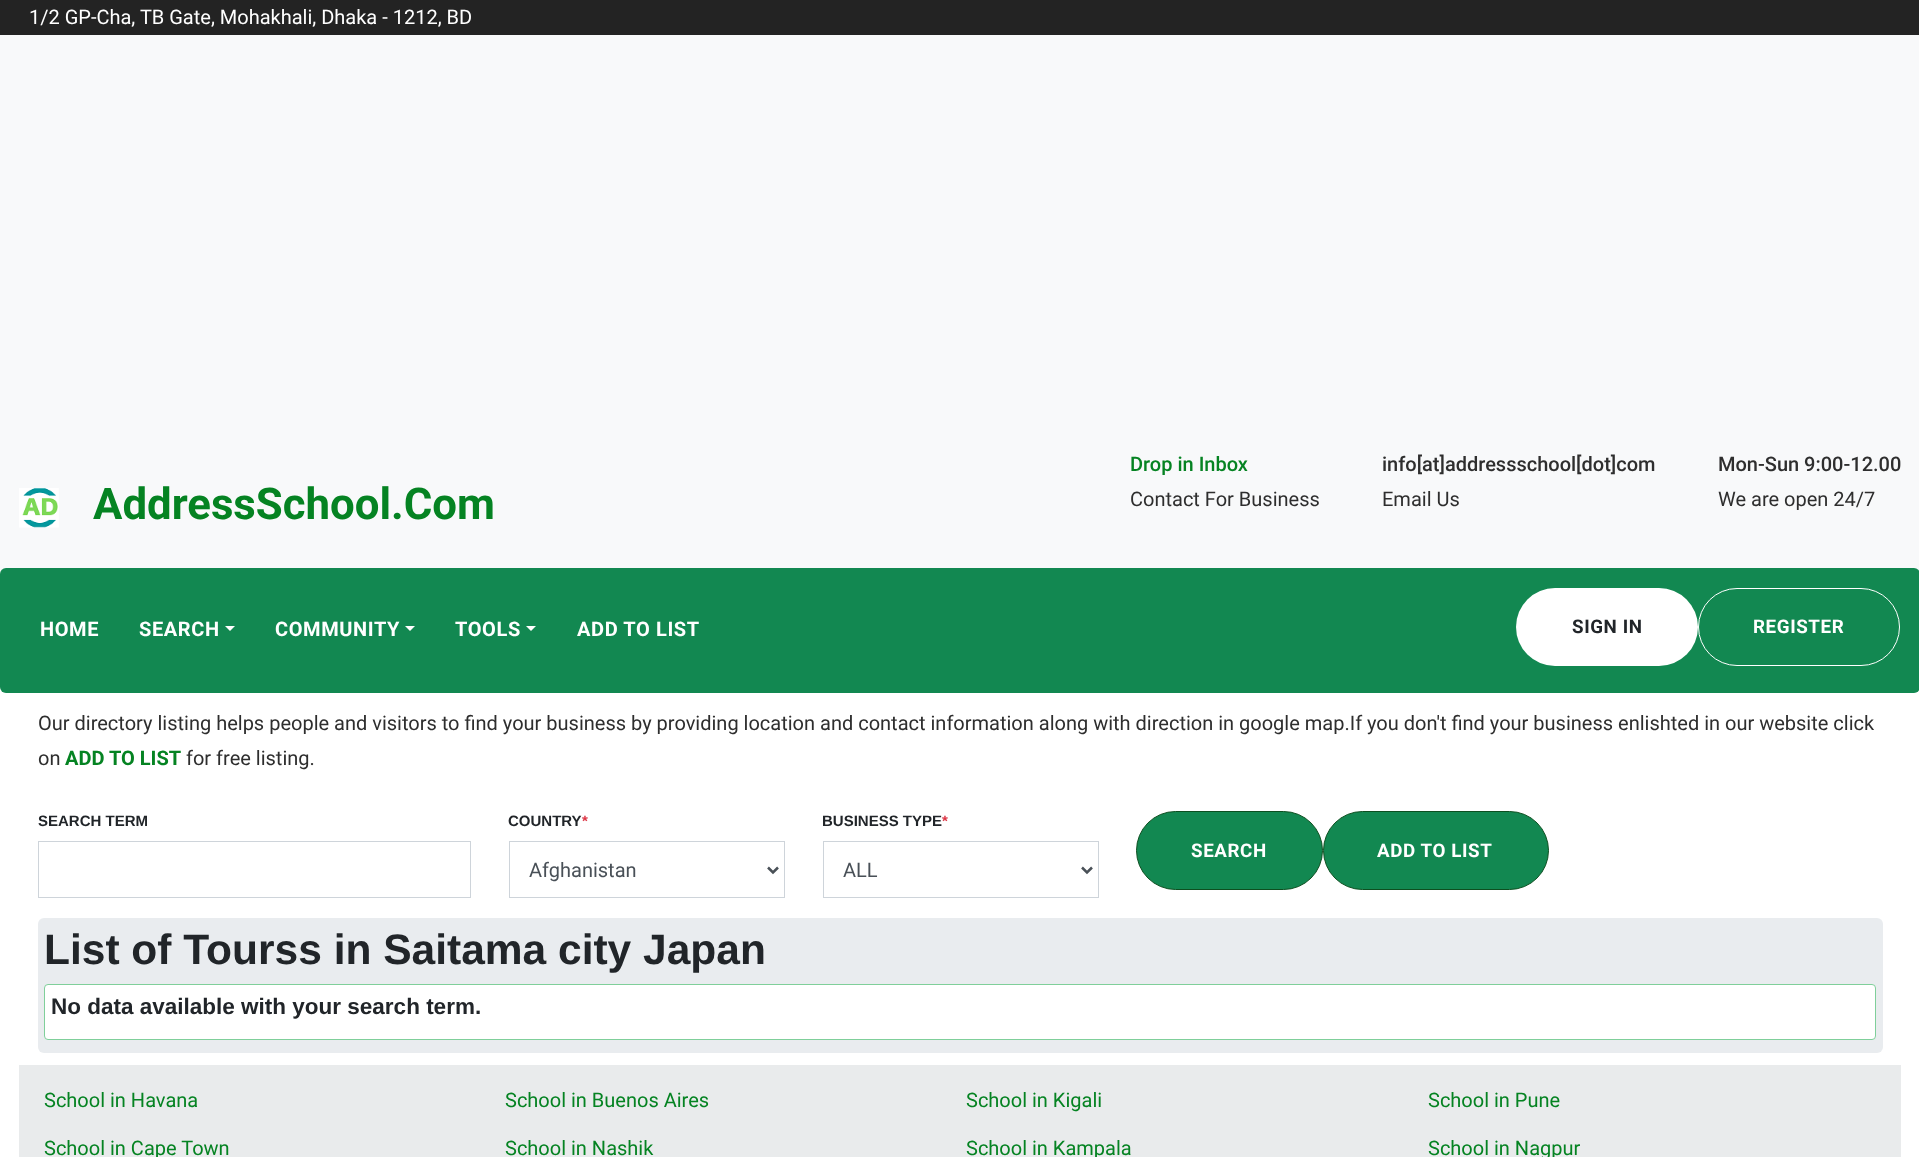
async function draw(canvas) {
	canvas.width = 1919;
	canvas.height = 1157;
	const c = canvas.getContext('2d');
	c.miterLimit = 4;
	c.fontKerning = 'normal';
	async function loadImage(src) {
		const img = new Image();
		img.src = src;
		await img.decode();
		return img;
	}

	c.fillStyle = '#fff';
	c.fillRect(0, 0, 1919, 1157);
	c.fillStyle = '#232323';
	c.fillRect(0, 0, 1919, 35);
	c.font = '20px Roboto';
	c.fillStyle = '#fff';
	c.fillText('1/2 GP-Cha, TB Gate, Mohakhali, Dhaka - 1212, BD', 29, 24);
	c.fillStyle = '#f8f9fa';
	c.fillRect(0, 35, 1919, 539);
	c.drawImage(await loadImage('img1.png'), 19, 488, 40, 40);
	c.font = 'bold 43.75px Roboto';
	c.fillStyle = '#058322';
	c.fillText('AddressSchool.Com', 93, 519);
	c.font = '500 20px Roboto';
	c.fillText('Drop in Inbox', 1130, 471);
	c.font = '20px Roboto';
	c.fillStyle = '#2e2e2e';
	c.fillText('Contact For Business', 1130, 506);
	c.font = '500 20px Roboto';
	c.fillText('info[at]addressschool[dot]com', 1382, 471);
	c.font = '20px Roboto';
	c.fillText('Email Us', 1382, 506);
	c.font = '500 20px Roboto';
	c.fillText('Mon-Sun 9:00-12.00', 1718, 471);
	c.font = '20px Roboto';
	c.fillText('We are open 24/7', 1718, 506);
	c.fillStyle = '#128851';
	c.beginPath();
	c.roundRect(0, 568, 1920, 125, 6);
	c.fill();
	c.letterSpacing = '0.6px';
	c.font = 'bold 20px Roboto';
	c.fillStyle = '#fff';
	c.fillText('HOME', 40, 636);
	c.fillText('SEARCH', 139, 636);
	c.beginPath();
	c.moveTo(225, 626);
	c.lineTo(235, 626);
	c.lineTo(230, 631);
	c.closePath();
	c.fill();
	c.fillText('COMMUNITY', 275, 636);
	c.beginPath();
	c.moveTo(405, 626);
	c.lineTo(415, 626);
	c.lineTo(410, 631);
	c.closePath();
	c.fill();
	c.fillText('TOOLS', 455, 636);
	c.beginPath();
	c.moveTo(526, 626);
	c.lineTo(536, 626);
	c.lineTo(531, 631);
	c.closePath();
	c.fill();
	c.fillText('ADD TO LIST', 577, 636);
	c.beginPath();
	c.roundRect(1516, 588, 182, 78, 39);
	c.fill();
	c.font = 'bold 18.75px Roboto';
	c.fillStyle = '#212529';
	c.fillText('SIGN IN', 1572, 633);
	c.beginPath();
	c.roundRect(1698.5, 588.5, 201, 77, 38.5);
	c.strokeStyle = '#fff';
	c.stroke();
	c.fillStyle = '#fff';
	c.fillText('REGISTER', 1753, 633);
	c.letterSpacing = '0px';
	c.font = '20px Roboto';
	c.fillStyle = '#2e2e2e';
	c.fillText('Our directory listing helps people and visitors to find your business by providing location and contact information along with direction in google map.If you don\'t find your business enlishted in our website click', 38, 730);
	c.fillText('on', 38, 765);
	c.font = 'bold 20px Roboto';
	c.fillStyle = '#058322';
	c.fillText('ADD TO LIST', 65, 765);
	c.font = '20px Roboto';
	c.fillStyle = '#2e2e2e';
	c.fillText('for free listing.', 186, 765);
	c.font = 'bold 15px Liberation Sans';
	c.fillStyle = '#212529';
	c.fillText('SEARCH TERM', 38, 826);
	c.strokeStyle = '#ced4da';
	c.strokeRect(38.5, 841.5, 432, 56);
	c.fillText('COUNTRY', 508, 826);
	c.fillStyle = '#dc3545';
	c.fillText('*', 582, 826);
	c.strokeRect(509.5, 841.5, 275, 56);
	c.beginPath();
	c.moveTo(768, 867.5);
	c.lineTo(773, 872.5);
	c.lineTo(778, 867.5);
	c.strokeStyle = '#495057';
	c.lineWidth = 2.5;
	c.stroke();
	c.font = '20px Roboto';
	c.fillStyle = '#495057';
	c.fillText('Afghanistan', 529, 877);
	c.font = 'bold 15px Liberation Sans';
	c.fillStyle = '#212529';
	c.fillText('BUSINESS TYPE', 822, 826);
	c.fillStyle = '#dc3545';
	c.fillText('*', 942, 826);
	c.strokeStyle = '#ced4da';
	c.lineWidth = 1;
	c.strokeRect(823.5, 841.5, 275, 56);
	c.beginPath();
	c.moveTo(1082, 867.5);
	c.lineTo(1087, 872.5);
	c.lineTo(1092, 867.5);
	c.strokeStyle = '#495057';
	c.lineWidth = 2.5;
	c.stroke();
	c.font = '20px Roboto';
	c.fillStyle = '#495057';
	c.fillText('ALL', 843, 877);
	c.fillStyle = '#128851';
	c.beginPath();
	c.roundRect(1136.5, 811.5, 186, 78, 39);
	c.fill();
	c.strokeStyle = '#0d4f20';
	c.lineWidth = 1;
	c.stroke();
	c.letterSpacing = '0.6px';
	c.font = 'bold 18.75px Roboto';
	c.fillStyle = '#fff';
	c.fillText('SEARCH', 1191, 857);
	c.fillStyle = '#128851';
	c.beginPath();
	c.roundRect(1323.5, 811.5, 225, 78, 39);
	c.fill();
	c.stroke();
	c.fillStyle = '#fff';
	c.fillText('ADD TO LIST', 1377, 857);
	c.fillStyle = '#e9ecef';
	c.beginPath();
	c.roundRect(38, 918, 1845, 135, 6);
	c.fill();
	c.letterSpacing = '0px';
	c.font = 'bold 42.5px Liberation Sans';
	c.fillStyle = '#212529';
	c.fillText('List of Tourss in Saitama city Japan', 44, 964);
	c.fillStyle = '#fff';
	c.beginPath();
	c.roundRect(44.5, 984.5, 1831, 55, 3.5);
	c.fill();
	c.strokeStyle = '#7fcf9a';
	c.stroke();
	c.font = 'bold 22.5px Liberation Sans';
	c.fillStyle = '#212529';
	c.fillText('No data available with your search term.', 51, 1014);
	c.fillStyle = '#e9ebec';
	c.fillRect(19, 1065, 1882, 92);
	c.font = '20px Roboto';
	c.fillStyle = '#058322';
	for (const [text, x, y] of [
		['School in Havana', 44, 1107],
		['School in Buenos Aires', 505, 1107],
		['School in Kigali', 966, 1107],
		['School in Pune', 1428, 1107],
		['School in Cape Town', 44, 1155],
		['School in Nashik', 505, 1155],
		['School in Kampala', 966, 1155],
		['School in Nagpur', 1428, 1155],
	]) {
		c.fillText(text, x, y);
	}
}

draw(document.querySelector('canvas'));
